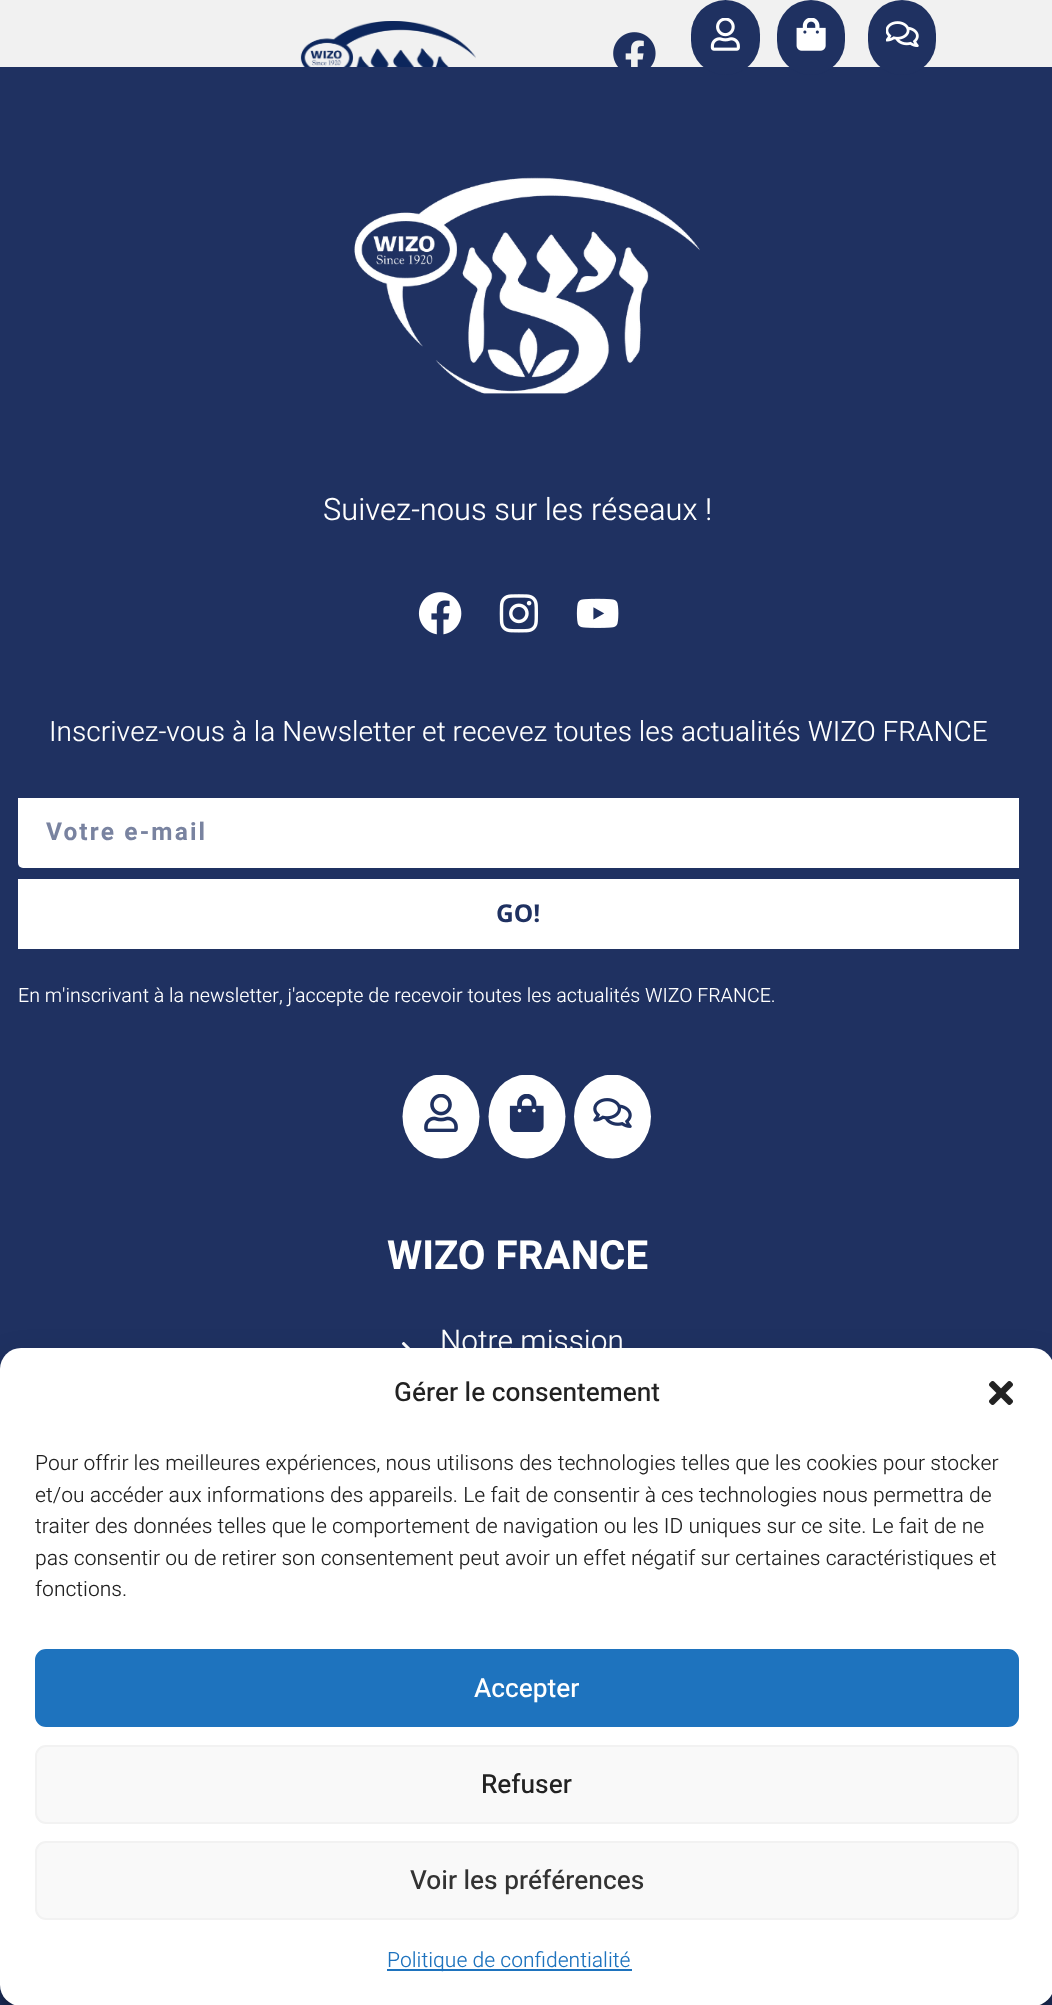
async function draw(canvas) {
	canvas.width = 1052;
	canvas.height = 2005;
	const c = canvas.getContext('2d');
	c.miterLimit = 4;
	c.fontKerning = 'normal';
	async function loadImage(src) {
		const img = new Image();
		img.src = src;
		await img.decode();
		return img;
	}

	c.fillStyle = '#1f3161';
	c.fillRect(0, 0, 1052, 2005);
	c.fillStyle = '#f1f1f1';
	c.fillRect(0, 0, 1052, 67);
	c.drawImage(await loadImage('img1.png'), 300, 21, 176, 46);
	c.drawImage(await loadImage('img2.png'), 613, 32, 43, 35);
	c.fillStyle = '#1f3161';
	c.beginPath();
	c.roundRect(691, 0, 69, 75, 34.5);
	c.fill();
	c.drawImage(await loadImage('img3.png'), 710, 18, 30, 33);
	c.beginPath();
	c.roundRect(777, 0, 68, 75, 34);
	c.fill();
	c.drawImage(await loadImage('img4.png'), 796, 18, 30, 33);
	c.beginPath();
	c.roundRect(868, 0, 68, 75, 34);
	c.fill();
	c.drawImage(await loadImage('img5.png'), 886, 21, 33, 26);
	c.fillStyle = '#fff';
	c.beginPath();
	c.ellipse(441, 1116.5, 38.5, 42, 0, 0, 2 * Math.PI);
	c.fill();
	c.beginPath();
	c.ellipse(527, 1116.5, 38.5, 42, 0, 0, 2 * Math.PI);
	c.fill();
	c.beginPath();
	c.ellipse(612.5, 1116.5, 38.5, 42, 0, 0, 2 * Math.PI);
	c.fill();
	c.fillStyle = '#1f3161';
	c.fillRect(435, 1074, 183, 1);
	c.drawImage(await loadImage('img6.png'), 354, 177, 346, 217);
	c.font = '300 30.75px Heebo';
	c.fillStyle = '#fff';
	c.fillText('Suivez-nous sur les réseaux !', 323, 520);
	c.drawImage(await loadImage('img7.png'), 418, 592, 44, 43);
	c.drawImage(await loadImage('img8.png'), 499, 594, 40, 39);
	c.drawImage(await loadImage('img9.png'), 576, 598, 43, 30);
	c.font = '300 28px Heebo';
	c.fillText('Inscrivez-vous à la Newsletter et recevez toutes les actualités WIZO FRANCE', 49, 741);
	c.beginPath();
	c.roundRect(18, 798, 1001, 70, [0, 0, 0, 5]);
	c.fill();
	c.letterSpacing = '2.1px';
	c.font = 'bold 24.5px Heebo';
	c.fillStyle = '#7983a0';
	c.fillText('Votre e-mail', 46, 840);
	c.fillStyle = '#fff';
	c.fillRect(18, 879, 1001, 70);
	c.letterSpacing = '0px';
	c.font = 'bold 24.5px Open Sans';
	c.fillStyle = '#1f3161';
	c.fillText('GO!', 496, 922);
	c.font = '300 19.6px Heebo';
	c.fillStyle = '#fff';
	c.fillText('En m\'inscrivant à la newsletter, j\'accepte de recevoir toutes les actualités WIZO FRANCE.', 18, 1002);
	c.drawImage(await loadImage('img10.png'), 424, 1094, 34, 38);
	c.drawImage(await loadImage('img11.png'), 509, 1094, 35, 38);
	c.drawImage(await loadImage('img12.png'), 593, 1098, 39, 30);
	c.font = 'bold 40.25px Heebo';
	c.fillText('WIZO FRANCE', 387, 1269);
	c.drawImage(await loadImage('img13.png'), 401, 1342, 9, 6);
	c.font = '300 29.75px Heebo';
	c.fillText('Notre mission', 440, 1351);
	c.fillStyle = '#0000003b';
	c.filter = 'blur(5px)';
	c.beginPath();
	c.roundRect(0, 1358, 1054, 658, 21);
	c.fill();
	c.filter = 'none';
	c.fillStyle = '#00000030';
	c.filter = 'blur(17.5px)';
	c.beginPath();
	c.roundRect(0, 1365, 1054, 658, 21);
	c.fill();
	c.filter = 'none';
	c.fillStyle = '#fff';
	c.beginPath();
	c.roundRect(0, 1348, 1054, 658, 21);
	c.fill();
	c.font = '500 26.25px Heebo';
	c.fillStyle = '#222';
	c.fillText('Gérer le consentement', 394, 1401);
	c.drawImage(await loadImage('img14.png'), 989, 1381, 24, 24);
	c.font = '300 21px Heebo';
	for (const [text, x, y] of [
		['Pour offrir les meilleures expériences, nous utilisons des technologies telles que les cookies pour stocker', 35, 1470],
		['et/ou accéder aux informations des appareils. Le fait de consentir à ces technologies nous permettra de', 35, 1502],
		['traiter des données telles que le comportement de navigation ou les ID uniques sur ce site. Le fait de ne', 35, 1533],
		['pas consentir ou de retirer son consentement peut avoir un effet négatif sur certaines caractéristiques et', 35, 1565],
		['fonctions.', 35, 1596],
	]) {
		c.fillText(text, x, y);
	}
	c.fillStyle = '#1e73be';
	c.beginPath();
	c.roundRect(36, 1650, 982, 76, 10);
	c.fill();
	c.strokeStyle = '#1e73be';
	c.lineWidth = 2;
	c.stroke();
	c.font = '500 26.25px Heebo';
	c.fillStyle = '#fff';
	c.fillText('Accepter', 474, 1697);
	c.fillStyle = '#f9f9f9';
	c.beginPath();
	c.roundRect(36, 1746, 982, 77, 10);
	c.fill();
	c.strokeStyle = '#f2f2f2';
	c.stroke();
	c.fillStyle = '#222';
	c.fillText('Refuser', 481, 1793);
	c.fillStyle = '#f9f9f9';
	c.beginPath();
	c.roundRect(36, 1842, 982, 77, 10);
	c.fill();
	c.stroke();
	c.fillStyle = '#333';
	c.fillText('Voir les préférences', 410, 1889);
	c.fillStyle = '#1e73be';
	c.fillRect(387, 1969, 245, 2);
	c.font = '300 21px Heebo';
	c.fillText('Politique de confidentialité', 387, 1967);
}

draw(document.querySelector('canvas'));
